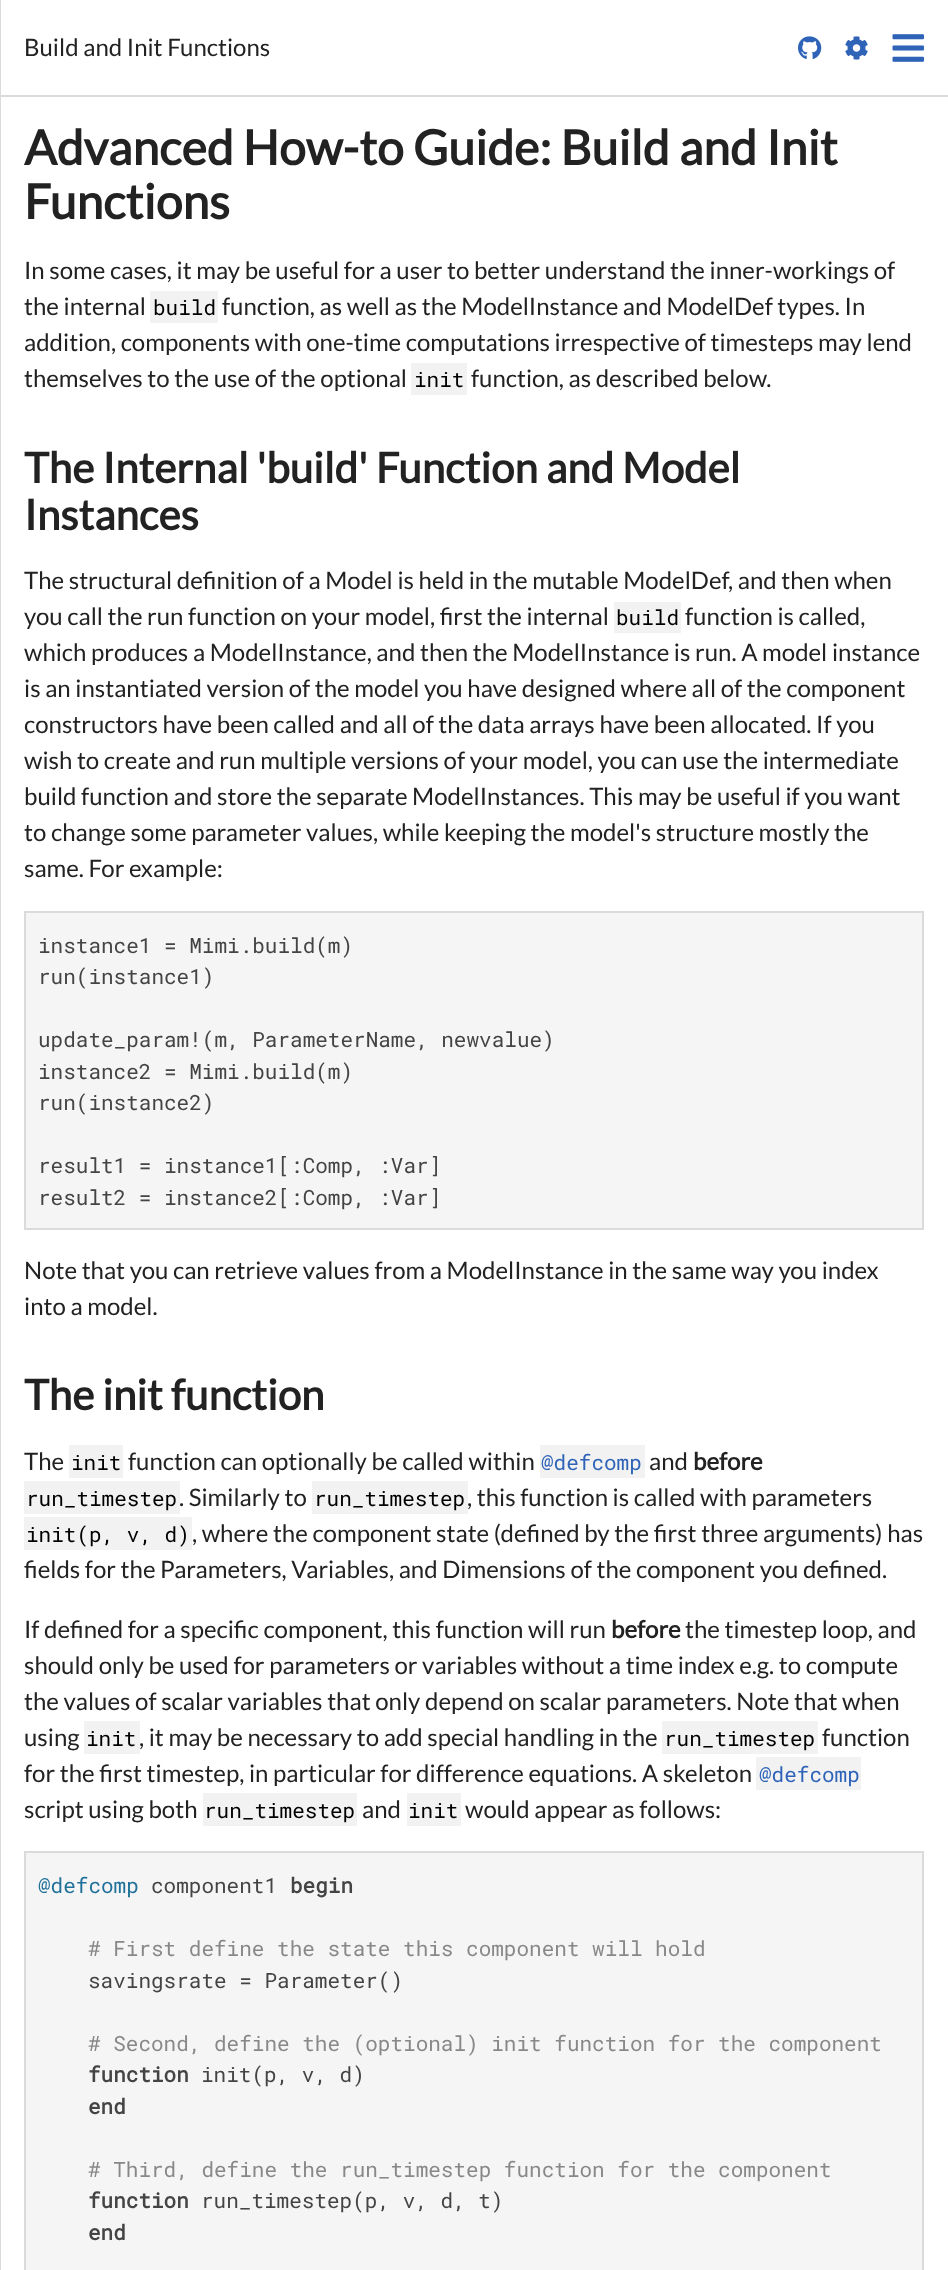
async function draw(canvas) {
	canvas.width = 948;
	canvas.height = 2270;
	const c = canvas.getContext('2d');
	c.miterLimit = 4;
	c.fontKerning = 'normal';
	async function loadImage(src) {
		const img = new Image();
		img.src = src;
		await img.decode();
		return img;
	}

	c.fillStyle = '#fff';
	c.fillRect(0, 0, 948, 2270);
	c.fillStyle = '#dbdbdb';
	c.fillRect(0, 95, 948, 2);
	c.fillRect(0, 0, 1, 2270);
	c.font = '24px Lato';
	c.fillStyle = '#222';
	c.fillText('Build and Init Functions', 24, 56);
	c.drawImage(await loadImage('img1.png'), 798, 36, 24, 23);
	c.drawImage(await loadImage('img2.png'), 845, 36, 23, 24);
	c.drawImage(await loadImage('img3.png'), 892, 34, 32, 28);
	c.font = 'bold 48px Lato';
	c.fillText('Advanced How-to Guide: Build and Init', 24, 165);
	c.fillText('Functions', 24, 219);
	c.font = '24px Lato';
	c.fillText('In some cases, it may be useful for a user to better understand the inner-workings of', 24, 279);
	c.fillText('the internal', 24, 315);
	c.fillStyle = '#f2f2f2';
	c.fillRect(150, 291, 68, 32);
	c.font = '21px Roboto Mono';
	c.fillStyle = '#000';
	c.fillText('build', 153, 315);
	c.font = '24px Lato';
	c.fillStyle = '#222';
	for (const [text, x, y] of [
		['function, as well as the ModelInstance and ModelDef types. In', 222, 315],
		['addition, components with one-time computations irrespective of timesteps may lend', 24, 351],
		['themselves to the use of the optional', 24, 387],
	]) {
		c.fillText(text, x, y);
	}
	c.fillStyle = '#f2f2f2';
	c.fillRect(411, 363, 56, 32);
	c.font = '21px Roboto Mono';
	c.fillStyle = '#000';
	c.fillText('init', 414, 387);
	c.font = '24px Lato';
	c.fillStyle = '#222';
	c.fillText('function, as described below.', 471, 387);
	c.font = 'bold 42px Lato';
	c.fillText('The Internal \'build\' Function and Model', 24, 483);
	c.fillText('Instances', 24, 530);
	c.font = '24px Lato';
	c.fillText('The structural definition of a Model is held in the mutable ModelDef, and then when', 24, 589);
	c.fillText('you call the run function on your model, first the internal', 24, 625);
	c.fillStyle = '#f2f2f2';
	c.fillRect(614, 602, 67, 31);
	c.font = '21px Roboto Mono';
	c.fillStyle = '#000';
	c.fillText('build', 616, 625);
	c.font = '24px Lato';
	c.fillStyle = '#222';
	for (const [text, x, y] of [
		['function is called,', 685, 625],
		['which produces a ModelInstance, and then the ModelInstance is run. A model instance', 24, 661],
		['is an instantiated version of the model you have designed where all of the component', 24, 697],
		['constructors have been called and all of the data arrays have been allocated. If you', 24, 733],
		['wish to create and run multiple versions of your model, you can use the intermediate', 24, 769],
		['build function and store the separate ModelInstances. This may be useful if you want', 24, 805],
		['to change some parameter values, while keeping the model\'s structure mostly the', 24, 841],
		['same. For example:', 24, 877],
	]) {
		c.fillText(text, x, y);
	}
	c.fillStyle = '#f5f5f5';
	c.beginPath();
	c.rect(25, 912, 898, 317);
	c.fill();
	c.strokeStyle = '#dbdbdb';
	c.lineWidth = 2;
	c.stroke();
	c.font = '21px Roboto Mono';
	c.fillStyle = '#444';
	for (const [text, x, y] of [
		['instance1 = Mimi.build(m)', 38, 953],
		['run(instance1)', 38, 984],
		['update_param!(m, ParameterName, newvalue)', 38, 1047],
		['instance2 = Mimi.build(m)', 38, 1079],
		['run(instance2)', 38, 1110],
		['result1 = instance1[:Comp, :Var]', 38, 1173],
		['result2 = instance2[:Comp, :Var]', 38, 1205],
	]) {
		c.fillText(text, x, y);
	}
	c.font = '24px Lato';
	c.fillStyle = '#222';
	c.fillText('Note that you can retrieve values from a ModelInstance in the same way you index', 24, 1279);
	c.fillText('into a model.', 24, 1315);
	c.font = 'bold 42px Lato';
	c.fillText('The init function', 24, 1410);
	c.font = '24px Lato';
	c.fillText('The', 24, 1470);
	c.fillStyle = '#f2f2f2';
	c.fillRect(69, 1445, 54, 33);
	c.font = '21px Roboto Mono';
	c.fillStyle = '#000';
	c.fillText('init', 71, 1470);
	c.font = '24px Lato';
	c.fillStyle = '#222';
	c.fillText('function can optionally be called within', 128, 1470);
	c.fillStyle = '#f2f2f2';
	c.fillRect(540, 1445, 105, 33);
	c.font = '21px Roboto Mono';
	c.fillStyle = '#2e63b8';
	c.fillText('@defcomp', 541, 1470);
	c.font = '24px Lato';
	c.fillStyle = '#222';
	c.fillText('and', 649, 1470);
	c.font = 'bold 24px Lato';
	c.fillText('before', 693, 1470);
	c.fillStyle = '#f2f2f2';
	c.fillRect(24, 1481, 156, 33);
	c.font = '21px Roboto Mono';
	c.fillStyle = '#000';
	c.fillText('run_timestep', 26, 1506);
	c.font = '24px Lato';
	c.fillStyle = '#222';
	c.fillText('. Similarly to', 179, 1506);
	c.fillStyle = '#f2f2f2';
	c.fillRect(312, 1481, 156, 33);
	c.font = '21px Roboto Mono';
	c.fillStyle = '#000';
	c.fillText('run_timestep', 314, 1506);
	c.font = '24px Lato';
	c.fillStyle = '#222';
	c.fillText(', this function is called with parameters', 467, 1506);
	c.fillStyle = '#f2f2f2';
	c.fillRect(24, 1517, 168, 33);
	c.font = '21px Roboto Mono';
	c.fillStyle = '#000';
	c.fillText('init(p, v, d)', 26, 1542);
	c.font = '24px Lato';
	c.fillStyle = '#222';
	for (const [text, x, y] of [
		[', where the component state (defined by the first three arguments) has', 192, 1542],
		['fields for the Parameters, Variables, and Dimensions of the component you defined.', 24, 1578],
		['If defined for a specific component, this function will run', 24, 1638],
	]) {
		c.fillText(text, x, y);
	}
	c.font = 'bold 24px Lato';
	c.fillText('before', 611, 1638);
	c.font = '24px Lato';
	for (const [text, x, y] of [
		['the timestep loop, and', 685, 1638],
		['should only be used for parameters or variables without a time index e.g. to compute', 24, 1674],
		['the values of scalar variables that only depend on scalar parameters. Note that when', 24, 1710],
		['using', 24, 1746],
	]) {
		c.fillText(text, x, y);
	}
	c.fillStyle = '#f2f2f2';
	c.fillRect(84, 1721, 56, 33);
	c.font = '21px Roboto Mono';
	c.fillStyle = '#000';
	c.fillText('init', 86, 1746);
	c.font = '24px Lato';
	c.fillStyle = '#222';
	c.fillText(', it may be necessary to add special handling in the', 139, 1746);
	c.fillStyle = '#f2f2f2';
	c.fillRect(662, 1721, 156, 33);
	c.font = '21px Roboto Mono';
	c.fillStyle = '#000';
	c.fillText('run_timestep', 664, 1746);
	c.font = '24px Lato';
	c.fillStyle = '#222';
	c.fillText('function', 822, 1746);
	c.fillText('for the first timestep, in particular for difference equations. A skeleton', 24, 1782);
	c.fillStyle = '#f2f2f2';
	c.fillRect(756, 1757, 105, 33);
	c.font = '21px Roboto Mono';
	c.fillStyle = '#2e63b8';
	c.fillText('@defcomp', 759, 1782);
	c.font = '24px Lato';
	c.fillStyle = '#222';
	c.fillText('script using both', 24, 1818);
	c.fillStyle = '#f2f2f2';
	c.fillRect(203, 1793, 154, 33);
	c.font = '21px Roboto Mono';
	c.fillStyle = '#000';
	c.fillText('run_timestep', 204, 1818);
	c.font = '24px Lato';
	c.fillStyle = '#222';
	c.fillText('and', 362, 1818);
	c.fillStyle = '#f2f2f2';
	c.fillRect(407, 1793, 54, 33);
	c.font = '21px Roboto Mono';
	c.fillStyle = '#000';
	c.fillText('init', 408, 1818);
	c.font = '24px Lato';
	c.fillStyle = '#222';
	c.fillText('would appear as follows:', 465, 1818);
	c.fillStyle = '#f5f5f5';
	c.beginPath();
	c.rect(25, 1852, 898, 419);
	c.fill();
	c.stroke();
	c.font = '21px Roboto Mono';
	c.fillStyle = '#1f7199';
	c.fillText('@defcomp', 38, 1893);
	c.fillStyle = '#444';
	c.fillText('component1', 151, 1893);
	c.font = 'bold 21px Roboto Mono';
	c.fillText('begin', 290, 1893);
	c.font = '21px Roboto Mono';
	c.fillStyle = '#888';
	c.fillText('# First define the state this component will hold', 88, 1956);
	c.fillStyle = '#444';
	c.fillText('savingsrate = Parameter()', 88, 1988);
	c.fillStyle = '#888';
	c.fillText('# Second, define the (optional) init function for the component', 88, 2051);
	c.font = 'bold 21px Roboto Mono';
	c.fillStyle = '#444';
	c.fillText('function', 88, 2082);
	c.font = '21px Roboto Mono';
	c.fillText('init(p, v, d)', 201, 2082);
	c.font = 'bold 21px Roboto Mono';
	c.fillText('end', 88, 2114);
	c.font = '21px Roboto Mono';
	c.fillStyle = '#888';
	c.fillText('# Third, define the run_timestep function for the component', 88, 2177);
	c.font = 'bold 21px Roboto Mono';
	c.fillStyle = '#444';
	c.fillText('function', 88, 2208);
	c.font = '21px Roboto Mono';
	c.fillText('run_timestep(p, v, d, t)', 201, 2208);
	c.font = 'bold 21px Roboto Mono';
	c.fillText('end', 88, 2240);
}

draw(document.querySelector('canvas'));
